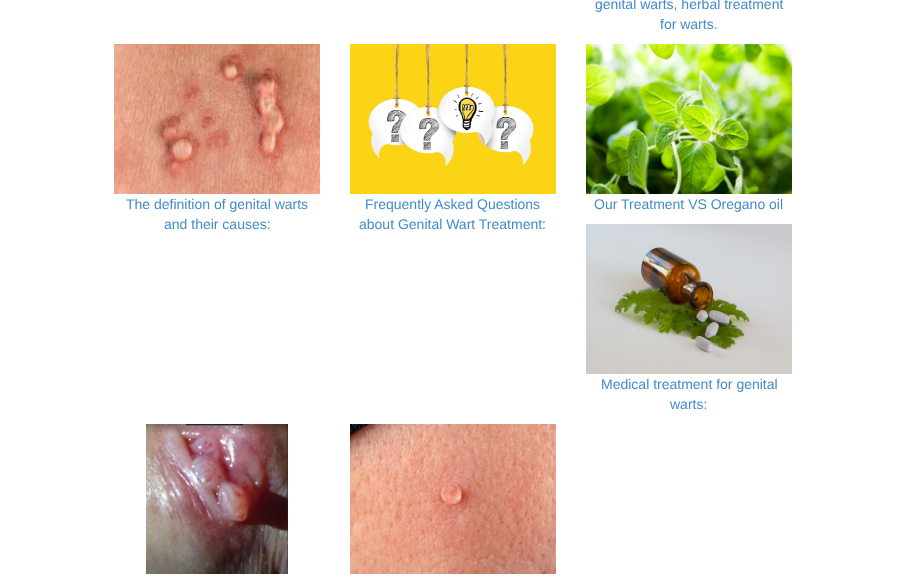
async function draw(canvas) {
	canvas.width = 906;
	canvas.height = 582;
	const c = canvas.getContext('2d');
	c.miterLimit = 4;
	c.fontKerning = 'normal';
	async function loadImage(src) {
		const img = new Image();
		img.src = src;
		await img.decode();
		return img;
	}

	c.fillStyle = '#fff';
	c.fillRect(0, 0, 906, 582);
	c.font = '14px Liberation Sans';
	c.fillStyle = '#428bca';
	c.fillText('genital warts, herbal treatment', 595, 9);
	c.fillText('for warts.', 660, 29);
	c.drawImage(await loadImage('img1.png'), 114, 44, 206, 150);
	c.fillText('The definition of genital warts', 126, 209);
	c.fillText('and their causes:', 164, 229);
	c.drawImage(await loadImage('img2.png'), 350, 44, 206, 150);
	c.fillText('Frequently Asked Questions', 365, 209);
	c.fillText('about Genital Wart Treatment:', 359, 229);
	c.drawImage(await loadImage('img3.png'), 586, 44, 206, 150);
	c.fillText('Our Treatment VS Oregano oil', 594, 209);
	c.drawImage(await loadImage('img4.png'), 586, 224, 206, 150);
	c.fillText('Medical treatment for genital', 601, 389);
	c.fillText('warts:', 670, 409);
	c.drawImage(await loadImage('img5.png'), 146, 424, 142, 150);
	c.drawImage(await loadImage('img6.png'), 350, 424, 206, 150);
}

draw(document.querySelector('canvas'));
